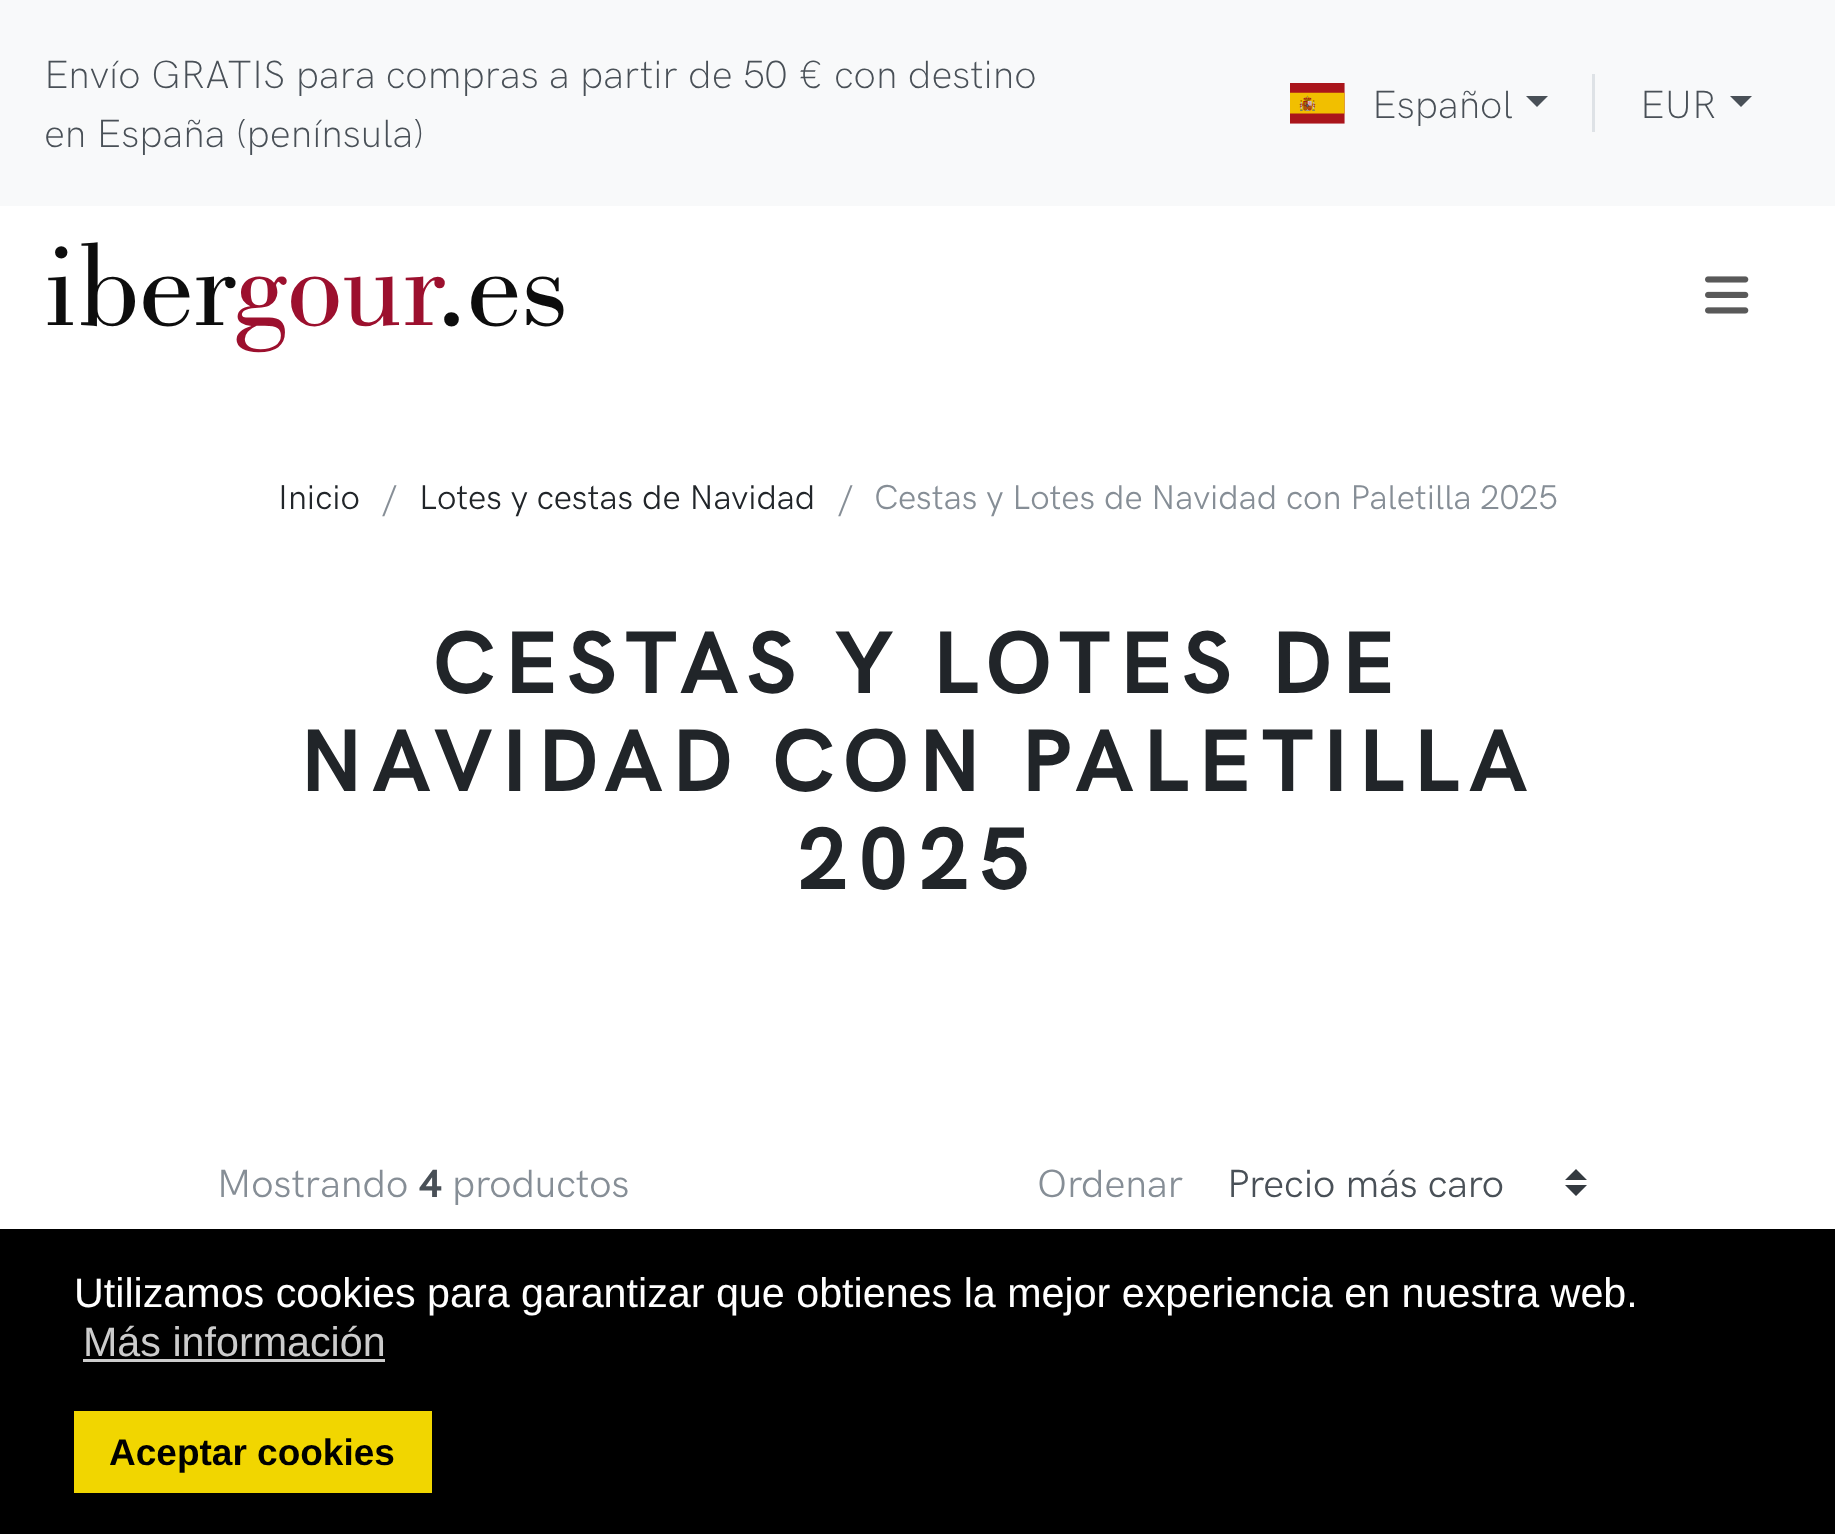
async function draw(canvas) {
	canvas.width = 1835;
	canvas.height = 1534;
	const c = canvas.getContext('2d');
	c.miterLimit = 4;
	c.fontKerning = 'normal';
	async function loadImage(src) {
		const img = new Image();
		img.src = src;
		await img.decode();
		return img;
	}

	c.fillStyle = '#fff';
	c.fillRect(0, 0, 1835, 1534);
	c.fillStyle = '#f8f9fa';
	c.fillRect(0, 0, 1835, 206);
	c.font = '300 39.6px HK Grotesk';
	c.fillStyle = '#495057';
	for (const [text, x, y] of [
		['Envío GRATIS para compras a partir de', 44, 88],
		['50 € con destino', 743, 88],
		['en España (península)', 44, 147],
	]) {
		c.fillText(text, x, y);
	}
	c.fillStyle = '#dee2e6';
	c.fillRect(1592, 74, 3, 58);
	c.drawImage(await loadImage('img1.png'), 1290, 83, 55, 41);
	c.fillStyle = '#495057';
	c.fillText('Español', 1372, 118);
	c.beginPath();
	c.moveTo(1526, 96);
	c.lineTo(1548, 96);
	c.lineTo(1537, 107);
	c.closePath();
	c.fill();
	c.fillText('EUR', 1640, 118);
	c.beginPath();
	c.moveTo(1730, 96);
	c.lineTo(1752, 96);
	c.lineTo(1741, 107);
	c.closePath();
	c.fill();
	c.font = '124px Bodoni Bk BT';
	c.fillStyle = '#0d0d0d';
	c.fillText('iber', 44, 325);
	c.fillStyle = '#9c102e';
	c.fillText('gour', 233, 325);
	c.fillStyle = '#0d0d0d';
	c.fillText('.es', 436, 325);
	c.drawImage(await loadImage('img2.png'), 1705, 276, 44, 38);
	c.font = '34.6px HK Grotesk';
	c.fillStyle = '#212529';
	c.fillText('Inicio', 278, 509);
	c.fillStyle = '#868e96';
	c.fillText('/', 382, 509);
	c.fillStyle = '#212529';
	c.fillText('Lotes y cestas de Navidad', 419, 509);
	c.fillStyle = '#868e96';
	c.fillText('/', 838, 509);
	c.fillText('Cestas y Lotes de Navidad con Paletilla 2025', 874, 509);
	c.letterSpacing = '8.9px';
	c.font = 'bold 89.1px HK Grotesk';
	c.fillStyle = '#212529';
	for (const [text, x, y] of [
		['CESTAS Y LOTES DE', 433, 693],
		['NAVIDAD CON PALETILLA', 300, 791],
		['2025', 797, 889],
	]) {
		c.fillText(text, x, y);
	}
	c.letterSpacing = '0px';
	c.font = '39.6px HK Grotesk';
	c.fillStyle = '#868e96';
	c.fillText('Mostrando', 217, 1197);
	c.font = 'bold 39.6px HK Grotesk';
	c.fillStyle = '#495057';
	c.fillText('4', 419, 1197);
	c.font = '39.6px HK Grotesk';
	c.fillStyle = '#868e96';
	c.fillText('productos', 452, 1197);
	c.fillText('Ordenar', 1037, 1197);
	c.fillStyle = '#343a40';
	c.beginPath();
	c.moveTo(1576, 1169);
	c.lineTo(1565, 1180);
	c.lineTo(1587, 1180);
	c.closePath();
	c.moveTo(1576, 1196);
	c.lineTo(1565, 1185);
	c.lineTo(1587, 1185);
	c.closePath();
	c.fill();
	c.fillStyle = '#495057';
	c.fillText('Precio más caro', 1227, 1197);
	c.fillStyle = '#000';
	c.fillRect(0, 1229, 1835, 305);
	c.font = '41.25px Liberation Sans';
	c.fillStyle = '#fff';
	c.fillText('Utilizamos cookies para garantizar que obtienes la mejor experiencia en nuestra web.', 74, 1307);
	c.fillStyle = '#ccc';
	c.fillText('Más información', 83, 1356);
	c.fillRect(83, 1359, 302, 3);
	c.fillStyle = '#f1d600';
	c.fillRect(74, 1411, 358, 82);
	c.font = 'bold 37px Liberation Sans';
	c.fillStyle = '#000';
	c.fillText('Aceptar cookies', 109, 1465);
}

draw(document.querySelector('canvas'));
